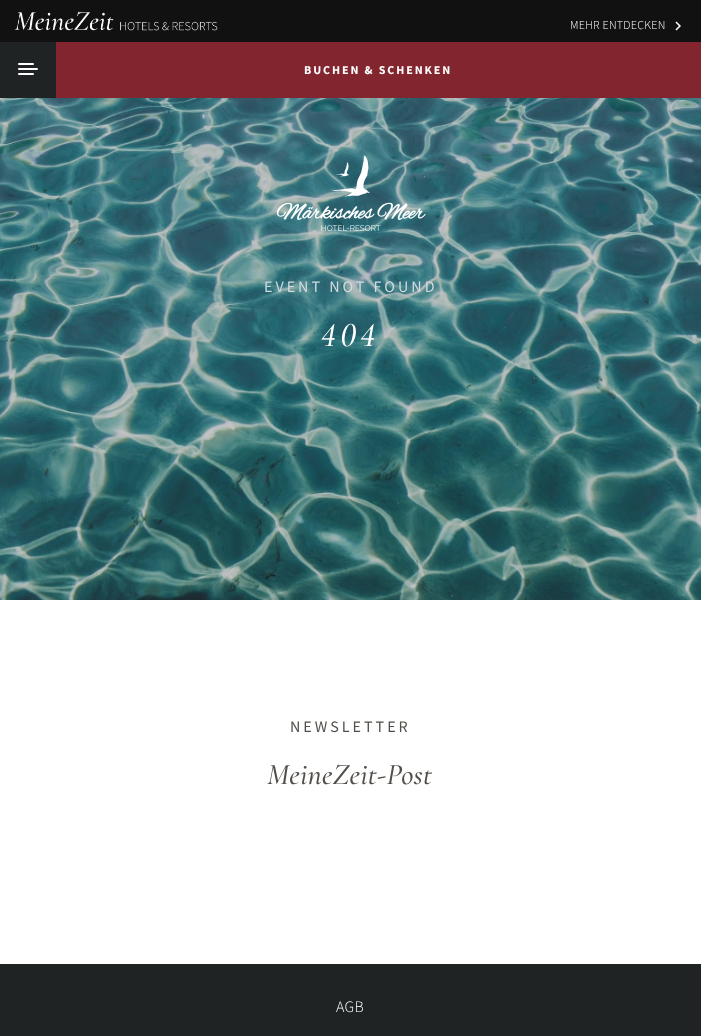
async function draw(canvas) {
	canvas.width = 701;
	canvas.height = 1036;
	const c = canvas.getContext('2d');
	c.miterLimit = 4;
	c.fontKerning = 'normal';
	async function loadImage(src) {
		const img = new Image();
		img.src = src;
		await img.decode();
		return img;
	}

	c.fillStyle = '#fff';
	c.fillRect(0, 0, 701, 1036);
	c.fillStyle = '#111';
	c.fillRect(0, 0, 701, 42);
	c.drawImage(await loadImage('img1.png'), 14, 11, 204, 20);
	c.letterSpacing = '0.25px';
	c.font = '300 12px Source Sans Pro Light';
	c.fillStyle = '#fff';
	c.fillText('MEHR ENTDECKEN', 570, 29);
	c.drawImage(await loadImage('img2.png'), 675, 21, 6, 10);
	c.fillStyle = '#1f2324';
	c.fillRect(0, 42, 56, 56);
	c.fillStyle = '#fff';
	c.beginPath();
	c.roundRect(18, 63, 16, 2, 1);
	c.fill();
	c.beginPath();
	c.roundRect(18, 68, 20, 2, 1);
	c.fill();
	c.beginPath();
	c.roundRect(18, 73, 16, 2, 1);
	c.fill();
	c.fillStyle = '#83252f';
	c.fillRect(56, 42, 645, 56);
	c.letterSpacing = '1.9px';
	c.font = 'bold 12px Source Sans Pro';
	c.fillStyle = '#fff';
	c.fillText('BUCHEN & SCHENKEN', 304, 74);
	c.drawImage(await loadImage('img4.png'), 0, 98, 701, 502);
	c.drawImage(await loadImage('img3.png'), 276, 155, 150, 76);
	c.letterSpacing = '3px';
	c.font = '16px Source Sans Pro';
	c.fillStyle = '#d5dadf';
	c.fillText('EVENT NOT FOUND', 264, 292);
	c.letterSpacing = '4px';
	c.font = 'italic 500 35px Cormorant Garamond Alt';
	c.fillStyle = '#fff';
	c.fillText('404', 321, 346);
	c.letterSpacing = '3px';
	c.font = '16px Source Sans Pro';
	c.fillStyle = '#534e49';
	c.fillText('NEWSLETTER', 290, 732);
	c.letterSpacing = '0.25px';
	c.font = 'italic 500 30px Cormorant Garamond';
	c.fillText('MeineZeit-Post', 267, 784);
	c.fillStyle = '#1f2324';
	c.fillRect(0, 964, 701, 72);
	c.font = '300 16px Source Sans Pro Light';
	c.fillStyle = '#fff';
	c.fillText('AGB', 336, 1012);
}

draw(document.querySelector('canvas'));
